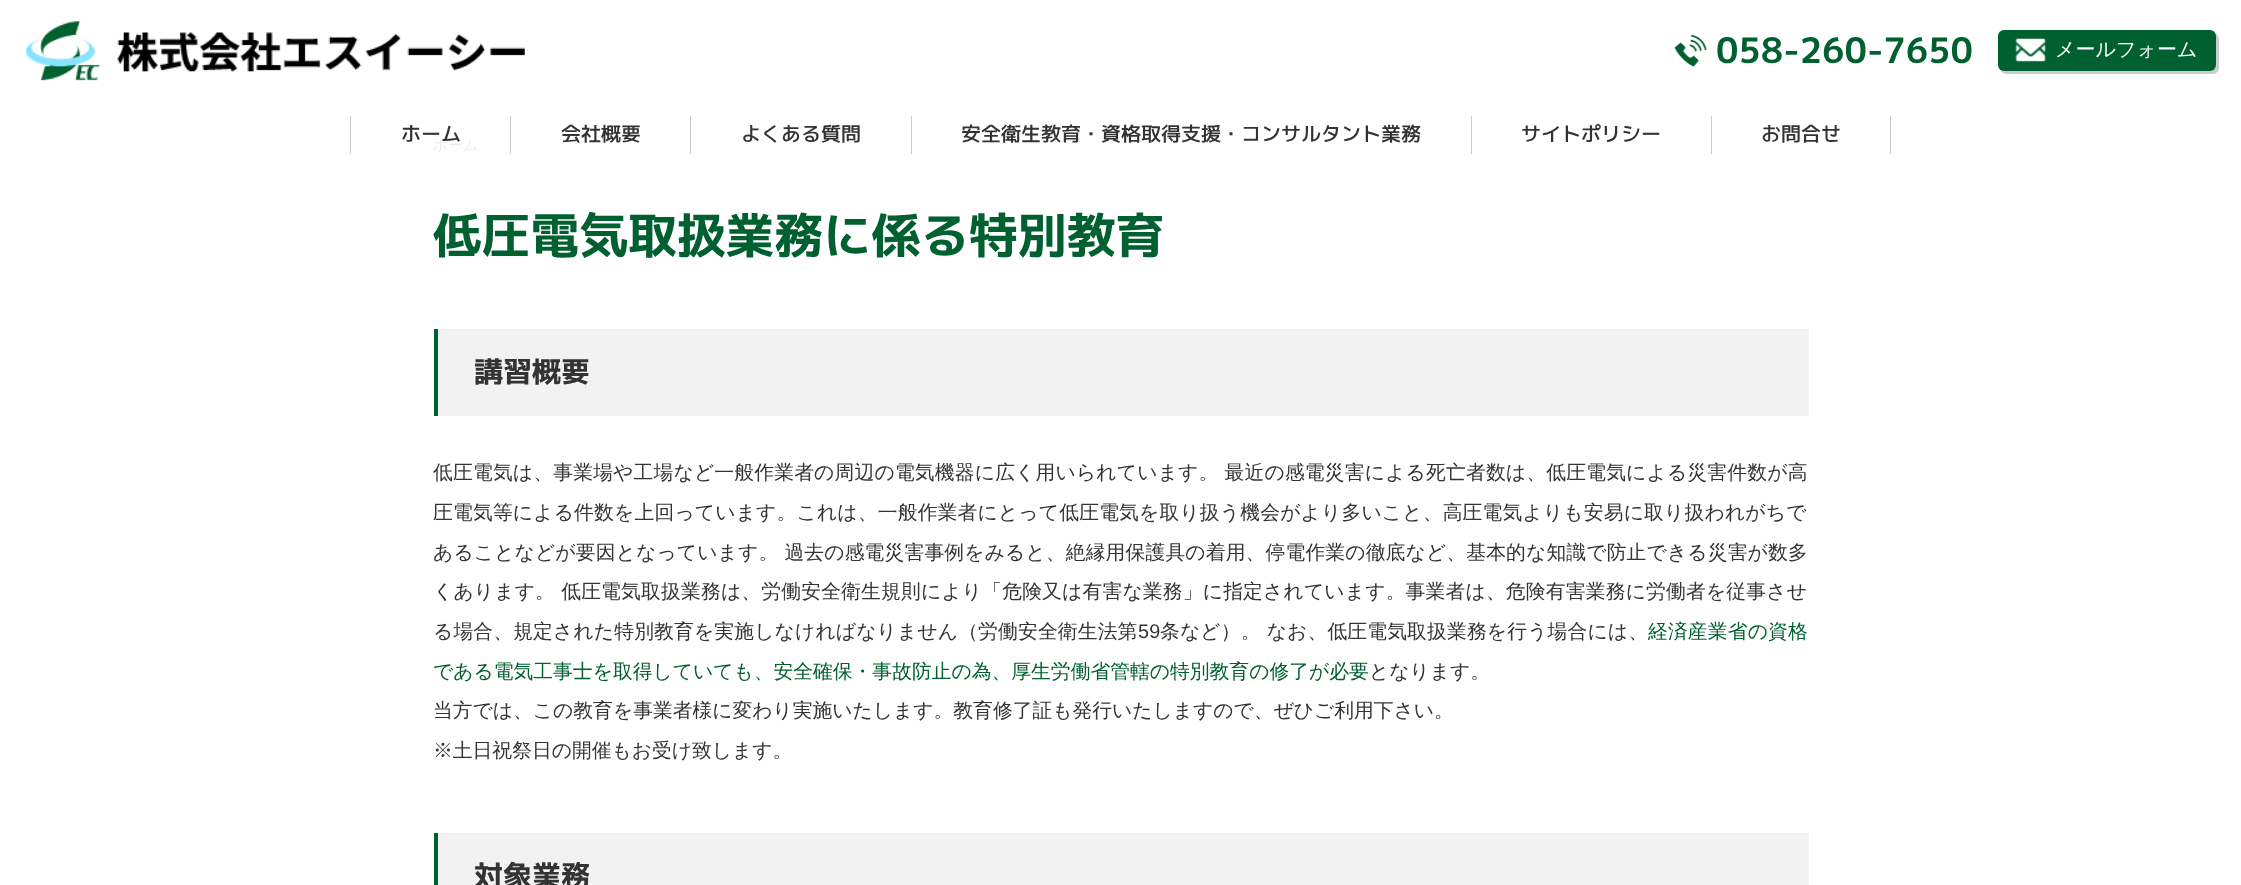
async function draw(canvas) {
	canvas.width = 2241;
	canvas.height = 885;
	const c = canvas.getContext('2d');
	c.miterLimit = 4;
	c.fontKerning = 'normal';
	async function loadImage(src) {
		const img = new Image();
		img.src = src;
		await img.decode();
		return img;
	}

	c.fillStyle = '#fff';
	c.fillRect(0, 0, 2241, 885);
	c.drawImage(await loadImage('img1.png'), 25, 21, 500, 60);
	c.drawImage(await loadImage('img2.png'), 1674, 35, 33, 32);
	c.font = 'bold 35px "M PLUS 1p"';
	c.fillStyle = '#00602f';
	c.fillText('058-260-7650', 1716, 63);
	c.fillStyle = '#ccc';
	c.beginPath();
	c.moveTo(2000, 70);
	c.bezierCurveTo(2001, 72, 2004, 74, 2006, 74);
	c.lineTo(2213, 74);
	c.bezierCurveTo(2216, 74, 2219, 71, 2219, 68);
	c.lineTo(2219, 39);
	c.bezierCurveTo(2219, 37, 2218, 35, 2216, 34);
	c.lineTo(2216, 36);
	c.lineTo(2216, 65);
	c.bezierCurveTo(2216, 68, 2213, 71, 2210, 71);
	c.lineTo(2004, 71);
	c.closePath();
	c.fill();
	c.fillStyle = '#00602f';
	c.beginPath();
	c.roundRect(1998, 30, 218, 41, 6);
	c.fill();
	c.drawImage(await loadImage('img3.png'), 2015, 38, 31, 24);
	c.font = '500 20px WenQuanYi Zen Hei';
	c.fillStyle = '#fff';
	c.fillText('メールフォーム', 2055, 56);
	c.fillStyle = '#ccc';
	c.fillRect(350, 116, 1, 38);
	c.font = '500 20px "M PLUS 1p"';
	c.fillStyle = '#333';
	c.fillText('ホーム', 401, 141);
	c.fillStyle = '#ccc';
	c.fillRect(510, 116, 1, 38);
	c.fillStyle = '#333';
	c.fillText('会社概要', 561, 141);
	c.fillStyle = '#ccc';
	c.fillRect(690, 116, 1, 38);
	c.fillStyle = '#333';
	c.fillText('よくある質問', 741, 141);
	c.fillStyle = '#ccc';
	c.fillRect(911, 116, 1, 38);
	c.fillStyle = '#333';
	c.fillText('安全衛生教育・資格取得支援・コンサルタント業務', 961, 141);
	c.fillStyle = '#ccc';
	c.fillRect(1471, 116, 1, 38);
	c.fillStyle = '#333';
	c.fillText('サイトポリシー', 1521, 141);
	c.fillStyle = '#ccc';
	c.fillRect(1711, 116, 1, 38);
	c.fillStyle = '#333';
	c.fillText('お問合せ', 1761, 141);
	c.fillStyle = '#ccc';
	c.fillRect(1890, 116, 1, 38);
	c.font = '500 15px WenQuanYi Zen Hei';
	c.fillStyle = '#ededed';
	c.fillText('ホーム', 433, 150);
	c.font = 'bold 48.75px "M PLUS 1p"';
	c.fillStyle = '#00602f';
	c.fillText('低圧電気取扱業務に係る特別教育', 433, 253);
	c.fillStyle = '#f2f2f2';
	c.fillRect(438, 329, 1371, 87);
	c.fillStyle = '#00602f';
	c.fillRect(434, 329, 4, 87);
	c.font = 'bold 29px "M PLUS 1p"';
	c.fillStyle = '#333';
	c.fillText('講習概要', 474, 382);
	c.letterSpacing = '0.18px';
	c.font = '500 19.8px WenQuanYi Zen Hei';
	c.fillText('低圧電気は、事業場や工場など一般作業者の周辺の電気機器に広く用いられています。 最近の感電災害による死亡者数は、低圧電気による災害件数が高', 433, 479);
	c.fillText('圧電気等による件数を上回っています。これは、一般作業者にとって低圧電気を取り扱う機会がより多いこと、高圧電気よりも安易に取り扱われがちで', 433, 519);
	c.letterSpacing = '0.15px';
	c.fillText('あることなどが要因となっています。 過去の感電災害事例をみると、絶縁用保護具の着用、停電作業の徹底など、基本的な知識で防止できる災害が数多', 433, 559);
	c.letterSpacing = '0.18px';
	c.fillText('くあります。 低圧電気取扱業務は、労働安全衛生規則により「危険又は有害な業務」に指定されています。事業者は、危険有害業務に労働者を従事させ', 433, 598);
	c.letterSpacing = '0.15px';
	c.fillText('る場合、規定された特別教育を実施しなければなりません（労働安全衛生法第', 433, 638);
	c.font = '19.8px Liberation Sans';
	c.fillText('59', 1138, 638);
	c.font = '500 19.8px WenQuanYi Zen Hei';
	c.fillText('条など）。 なお、低圧電気取扱業務を行う場合には、', 1160, 638);
	c.fillStyle = '#00602f';
	c.fillText('経済産業省の資格', 1648, 638);
	c.letterSpacing = '0px';
	c.fillText('である電気工事士を取得していても、安全確保・事故防止の為、厚生労働省管轄の特別教育の修了が必要', 433, 678);
	c.fillStyle = '#333';
	for (const [text, x, y] of [
		['となります。', 1369, 678],
		['当方では、この教育を事業者様に変わり実施いたします。教育修了証も発行いたしますので、ぜひご利用下さい。', 433, 717],
		['※土日祝祭日の開催もお受け致します。', 433, 757],
	]) {
		c.fillText(text, x, y);
	}
	c.fillStyle = '#f2f2f2';
	c.fillRect(438, 833, 1371, 52);
	c.fillStyle = '#00602f';
	c.fillRect(434, 833, 4, 52);
	c.font = 'bold 29px "M PLUS 1p"';
	c.fillStyle = '#333';
	c.fillText('対象業務', 474, 886);
}

draw(document.querySelector('canvas'));
